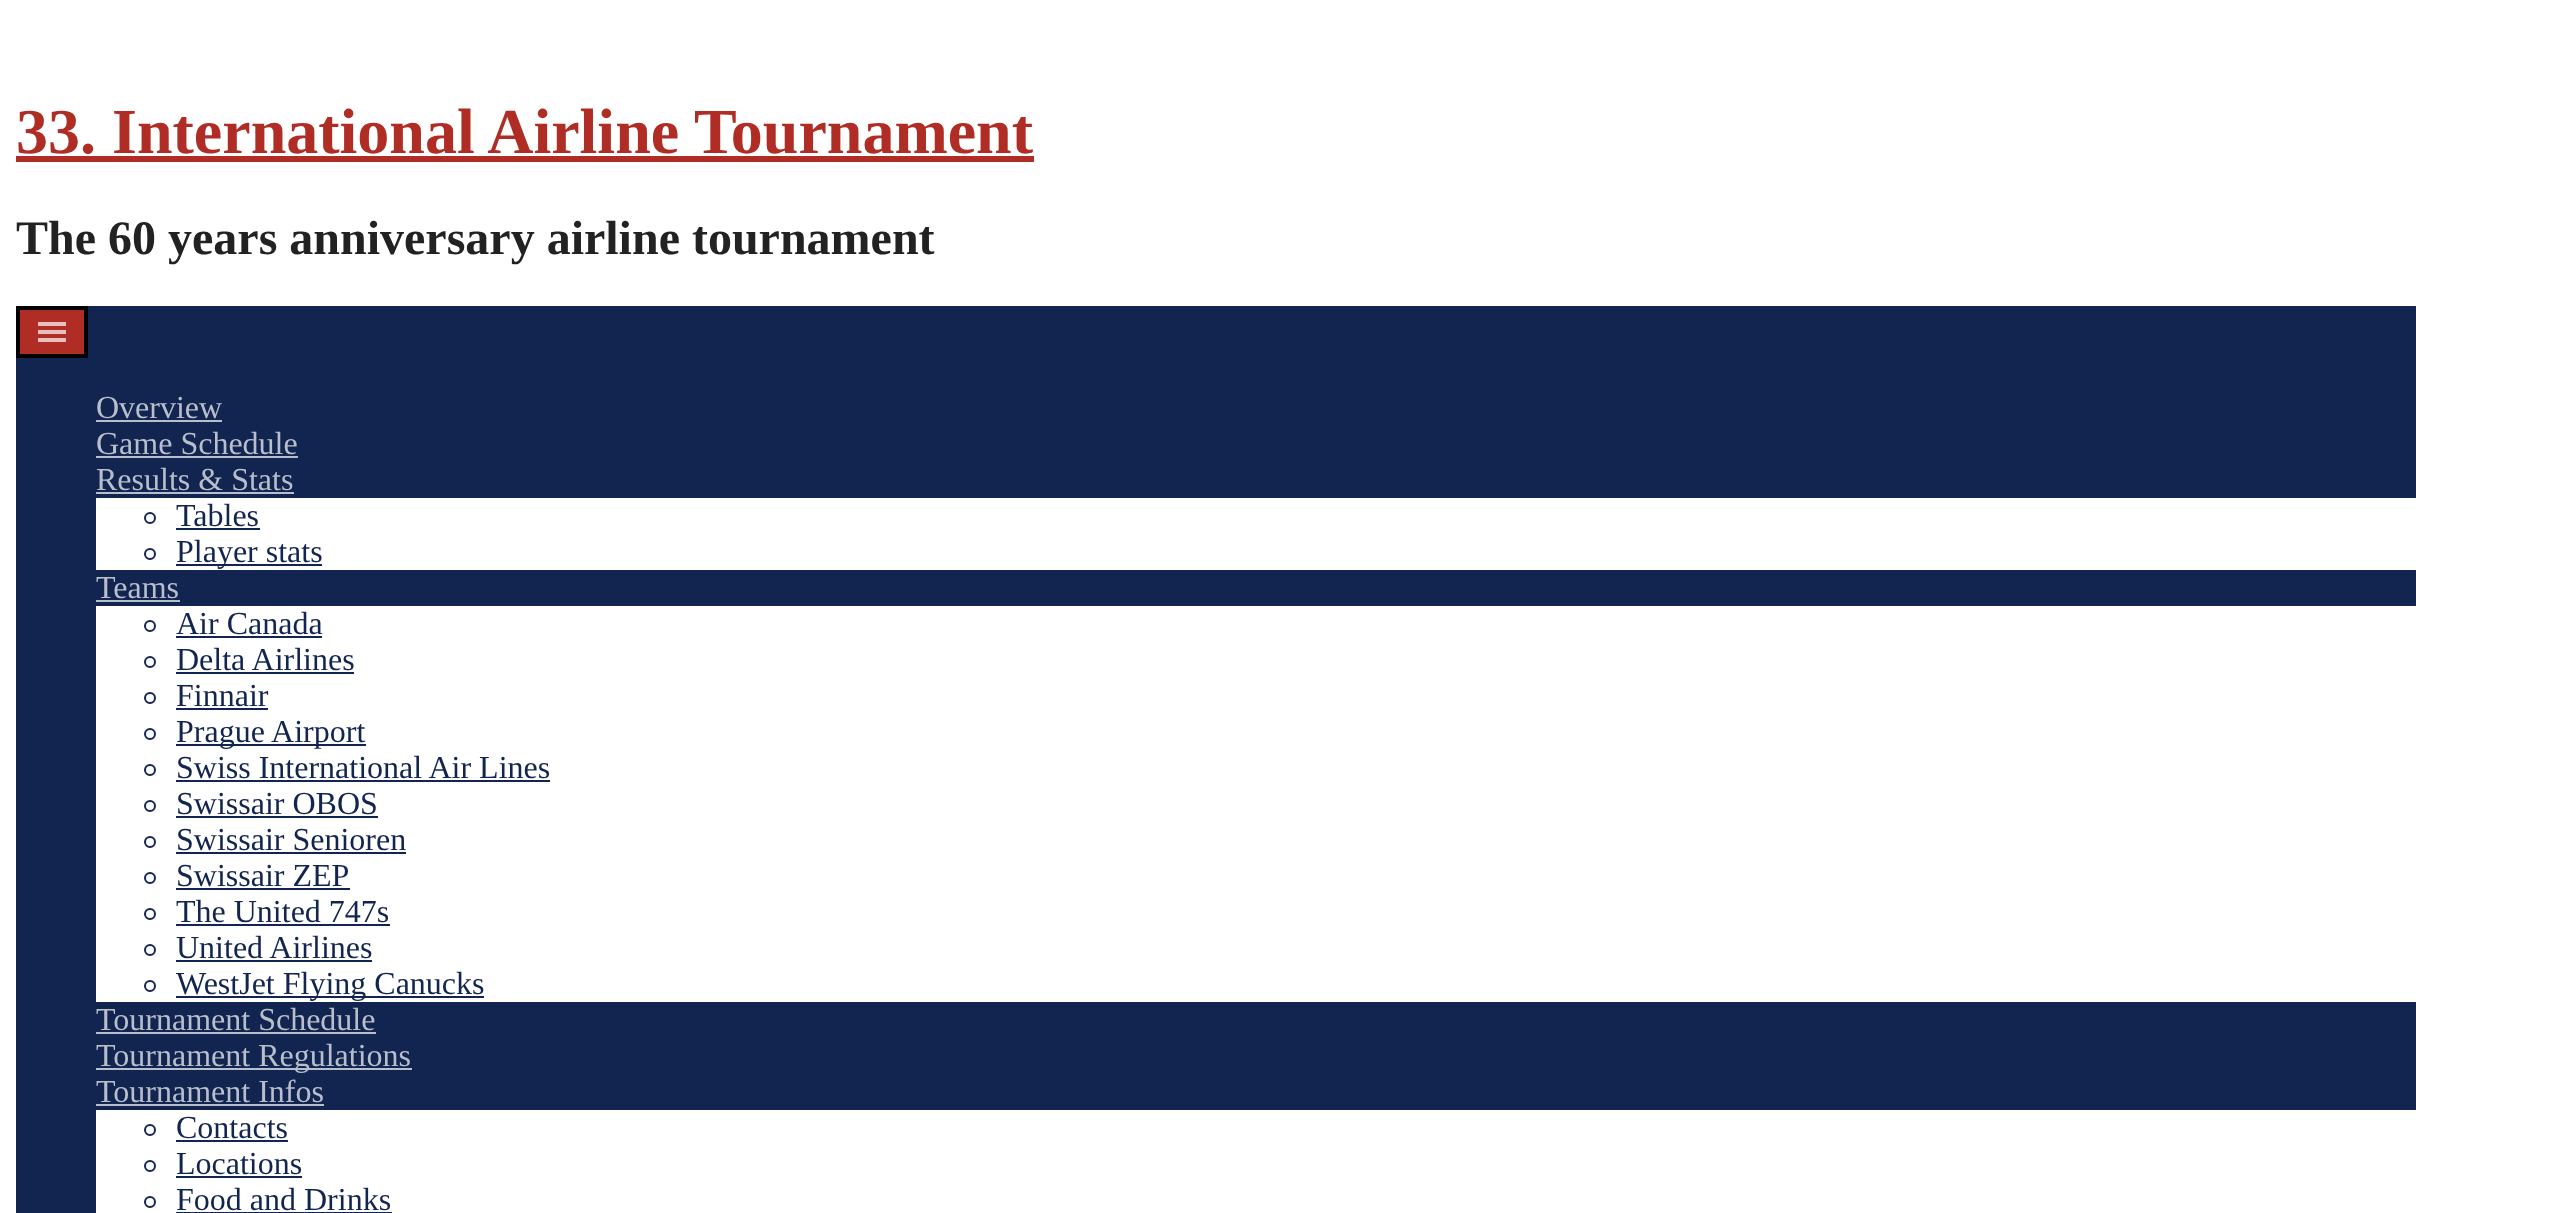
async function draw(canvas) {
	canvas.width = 2561;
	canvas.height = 1213;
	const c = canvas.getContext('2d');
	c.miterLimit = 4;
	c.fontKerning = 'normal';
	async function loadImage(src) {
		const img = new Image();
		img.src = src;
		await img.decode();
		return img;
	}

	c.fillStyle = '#fff';
	c.fillRect(0, 0, 2561, 1213);
	c.font = 'bold 64px Liberation Serif';
	c.fillStyle = '#b02d25';
	c.fillText('33. International Airline Tournament', 16, 153);
	c.fillRect(16, 156, 1018, 6);
	c.font = 'bold 48px Liberation Serif';
	c.fillStyle = '#222';
	c.fillText('The 60 years anniversary airline tournament', 16, 254);
	c.fillStyle = '#122550';
	c.fillRect(16, 306, 2400, 907);
	c.fillStyle = '#b02d25';
	c.beginPath();
	c.rect(18, 308, 68, 48);
	c.fill();
	c.strokeStyle = '#000';
	c.lineWidth = 4;
	c.stroke();
	c.drawImage(await loadImage('img1.png'), 38, 322, 28, 20);
	c.font = '32px Liberation Serif';
	c.fillStyle = '#b8becb';
	c.fillText('Overview', 96, 418);
	c.fillRect(96, 420, 126, 2);
	c.fillText('Game Schedule', 96, 454);
	c.fillRect(96, 456, 202, 2);
	c.fillText('Results & Stats', 96, 490);
	c.fillRect(96, 492, 198, 2);
	c.fillStyle = '#fff';
	c.fillRect(96, 498, 2320, 72);
	c.beginPath();
	c.arc(150, 518, 5, 0, 2 * Math.PI);
	c.strokeStyle = '#122550';
	c.lineWidth = 2;
	c.stroke();
	c.fillStyle = '#122550';
	c.fillText('Tables', 176, 526);
	c.fillRect(176, 528, 84, 2);
	c.beginPath();
	c.arc(150, 554, 5, 0, 2 * Math.PI);
	c.stroke();
	c.fillRect(176, 564, 146, 2);
	c.fillText('Player stats', 176, 562);
	c.fillStyle = '#b8becb';
	c.fillText('Teams', 96, 598);
	c.fillRect(96, 600, 84, 2);
	c.fillStyle = '#fff';
	c.fillRect(96, 606, 2320, 396);
	c.beginPath();
	c.arc(150, 626, 5, 0, 2 * Math.PI);
	c.stroke();
	c.fillStyle = '#122550';
	c.fillText('Air Canada', 176, 634);
	c.fillRect(176, 636, 146, 2);
	c.beginPath();
	c.arc(150, 662, 5, 0, 2 * Math.PI);
	c.stroke();
	c.fillText('Delta Airlines', 176, 670);
	c.fillRect(176, 672, 178, 2);
	c.beginPath();
	c.arc(150, 698, 5, 0, 2 * Math.PI);
	c.stroke();
	c.fillText('Finnair', 176, 706);
	c.fillRect(176, 708, 92, 2);
	c.beginPath();
	c.arc(150, 734, 5, 0, 2 * Math.PI);
	c.stroke();
	c.fillRect(176, 744, 190, 2);
	c.fillText('Prague Airport', 176, 742);
	c.beginPath();
	c.arc(150, 770, 5, 0, 2 * Math.PI);
	c.stroke();
	c.fillText('Swiss International Air Lines', 176, 778);
	c.fillRect(176, 780, 374, 2);
	c.beginPath();
	c.arc(150, 806, 5, 0, 2 * Math.PI);
	c.stroke();
	c.fillText('Swissair OBOS', 176, 814);
	c.fillRect(176, 816, 202, 2);
	c.beginPath();
	c.arc(150, 842, 5, 0, 2 * Math.PI);
	c.stroke();
	c.fillText('Swissair Senioren', 176, 850);
	c.fillRect(176, 852, 230, 2);
	c.beginPath();
	c.arc(150, 878, 5, 0, 2 * Math.PI);
	c.stroke();
	c.fillText('Swissair ZEP', 176, 886);
	c.fillRect(176, 888, 174, 2);
	c.beginPath();
	c.arc(150, 914, 5, 0, 2 * Math.PI);
	c.stroke();
	c.fillText('The United 747s', 176, 922);
	c.fillRect(176, 924, 214, 2);
	c.beginPath();
	c.arc(150, 950, 5, 0, 2 * Math.PI);
	c.stroke();
	c.fillText('United Airlines', 176, 958);
	c.fillRect(176, 960, 196, 2);
	c.beginPath();
	c.arc(150, 986, 5, 0, 2 * Math.PI);
	c.stroke();
	c.fillRect(176, 996, 308, 2);
	c.fillText('WestJet Flying Canucks', 176, 994);
	c.fillStyle = '#b8becb';
	c.fillText('Tournament Schedule', 96, 1030);
	c.fillRect(96, 1032, 280, 2);
	c.fillRect(96, 1068, 316, 2);
	c.fillText('Tournament Regulations', 96, 1066);
	c.fillText('Tournament Infos', 96, 1102);
	c.fillRect(96, 1104, 228, 2);
	c.fillStyle = '#fff';
	c.fillRect(96, 1110, 2320, 103);
	c.beginPath();
	c.arc(150, 1130, 5, 0, 2 * Math.PI);
	c.stroke();
	c.fillStyle = '#122550';
	c.fillText('Contacts', 176, 1138);
	c.fillRect(176, 1140, 112, 2);
	c.beginPath();
	c.arc(150, 1166, 5, 0, 2 * Math.PI);
	c.stroke();
	c.fillText('Locations', 176, 1174);
	c.fillRect(176, 1176, 126, 2);
	c.beginPath();
	c.arc(150, 1202, 5, 0, 2 * Math.PI);
	c.stroke();
	c.fillText('Food and Drinks', 176, 1210);
	c.fillRect(176, 1212, 216, 1);
}

draw(document.querySelector('canvas'));
